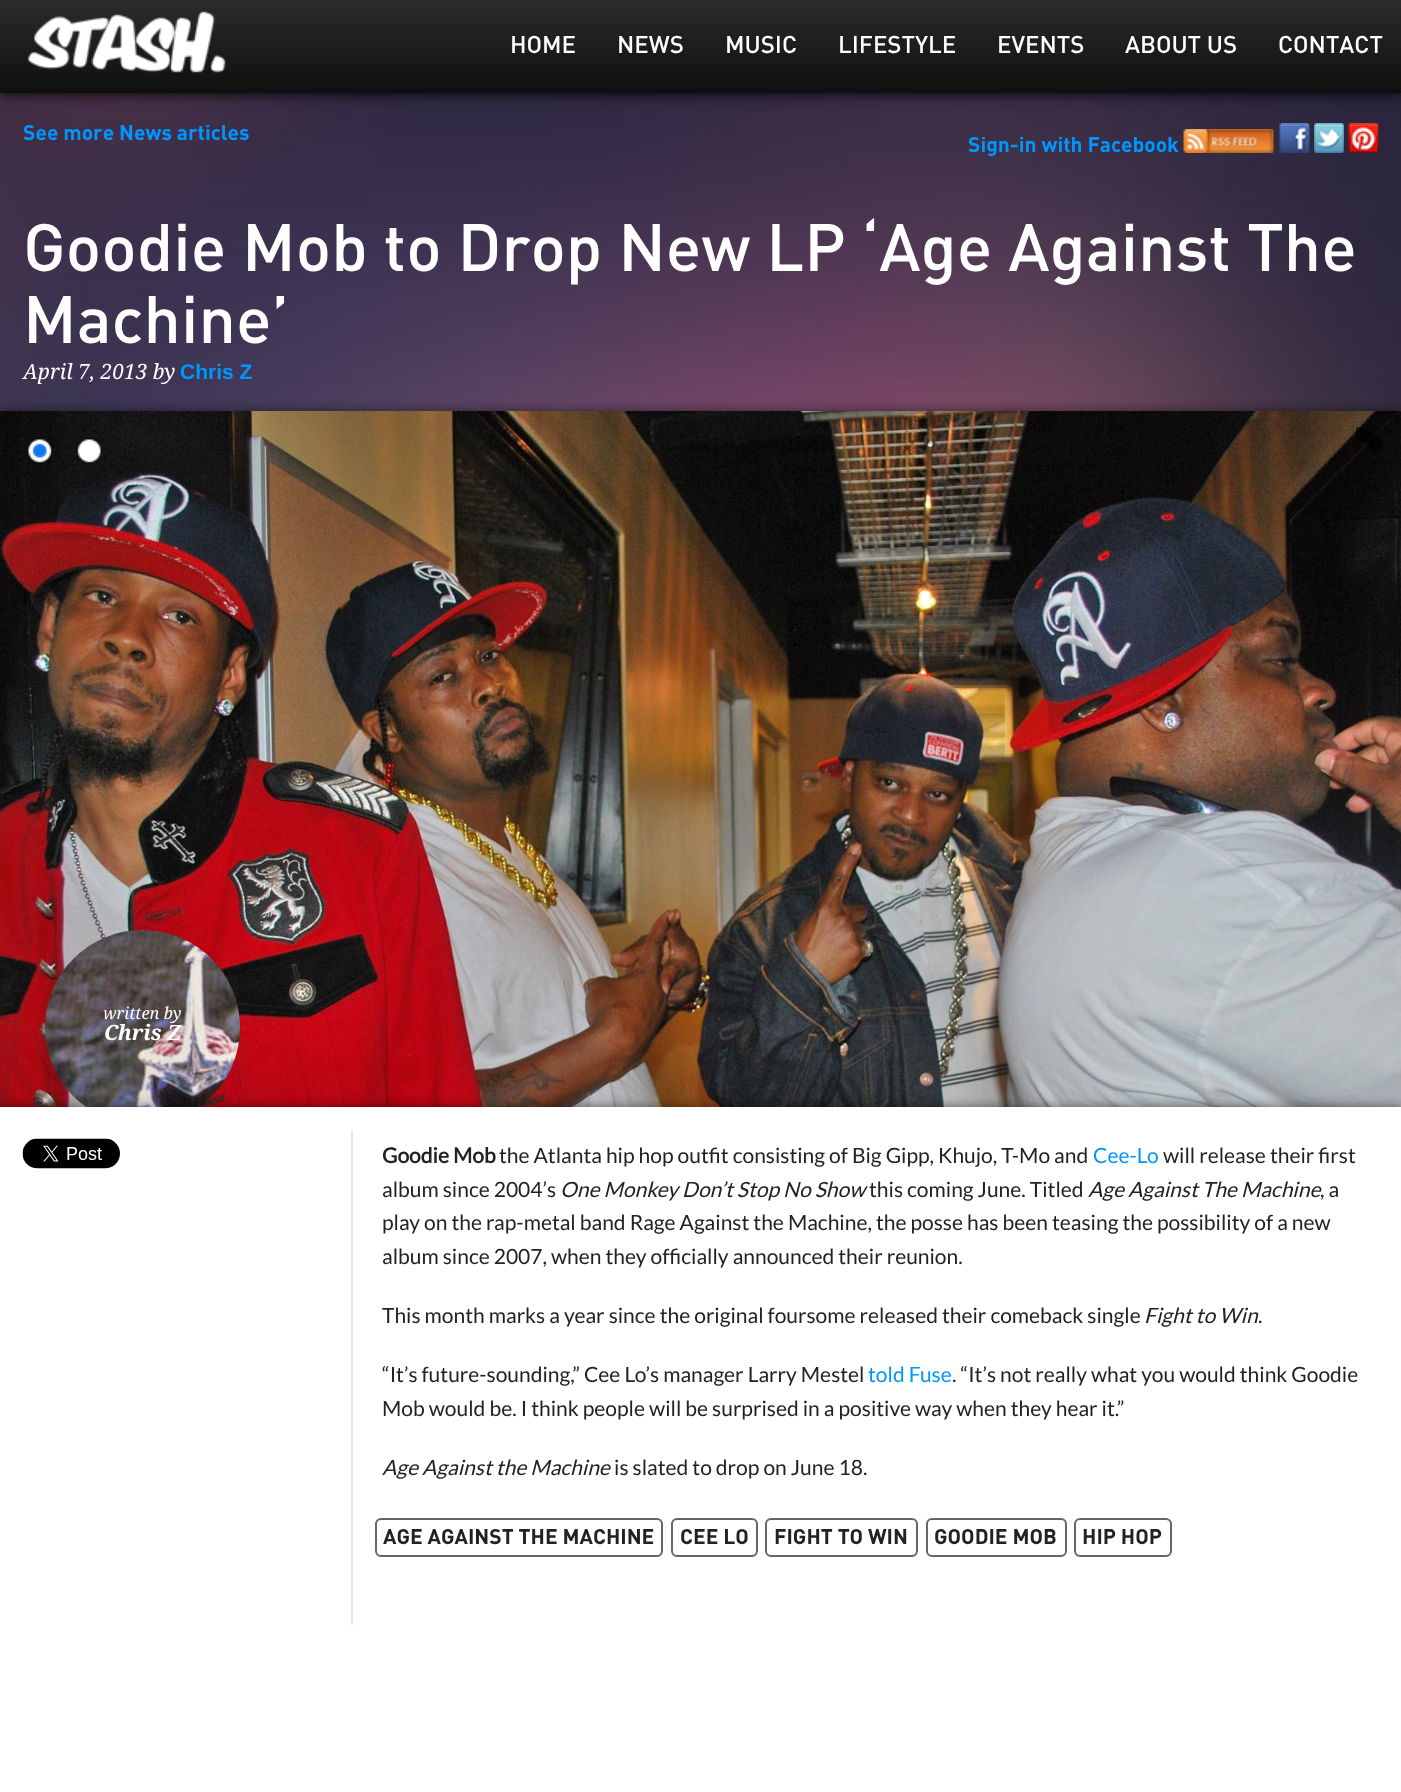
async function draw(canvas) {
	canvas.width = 1401;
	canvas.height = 1792;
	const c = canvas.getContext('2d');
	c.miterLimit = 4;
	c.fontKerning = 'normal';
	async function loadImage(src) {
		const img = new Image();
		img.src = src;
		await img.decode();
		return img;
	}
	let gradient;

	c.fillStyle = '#fff';
	c.fillRect(0, 0, 1401, 1792);
	c.drawImage(await loadImage('img1.png'), 0, 93, 1401, 318);
	c.fillStyle = '#000';
	c.filter = 'blur(7.5px)';
	c.beginPath();
	c.rect(0, 0, 1401, 93);
	c.fill();
	c.filter = 'none';
	gradient = c.createLinearGradient(701, 0, 701, 93);
	gradient.addColorStop(0, '#2b2b2b');
	gradient.addColorStop(1, '#0f0f0f');
	c.fillStyle = gradient;
	c.fillRect(0, 0, 1401, 93);
	c.drawImage(await loadImage('img2.png'), 28, 11, 198, 62);
	c.font = '500 24px DIN';
	c.fillStyle = '#fff';
	for (const [text, x, y] of [
		['HOME', 510, 53],
		['NEWS', 617, 53],
		['MUSIC', 725, 53],
		['LIFESTYLE', 838, 53],
		['EVENTS', 997, 53],
		['ABOUT US', 1125, 53],
		['CONTACT', 1278, 53],
	]) {
		c.fillText(text, x, y);
	}
	c.font = 'bold 21px DIN';
	c.fillStyle = '#0096ff';
	c.fillText('See more News articles', 23, 140);
	c.fillText('Sign-in with Facebook', 968, 152);
	c.drawImage(await loadImage('img3.png'), 1183, 129, 91, 24);
	c.drawImage(await loadImage('img4.png'), 1279, 123, 31, 30);
	c.drawImage(await loadImage('img5.png'), 1314, 123, 30, 30);
	c.drawImage(await loadImage('img6.png'), 1348, 123, 31, 30);
	c.font = '500 66px DIN';
	c.fillStyle = '#fff';
	c.fillText('Goodie Mob to Drop New LP ‘Age Against The', 23, 271);
	c.fillText('Machine’', 23, 343);
	c.font = 'italic 21px Droid Serif';
	c.fillText('April 7, 2013 by', 23, 379);
	c.font = 'bold 21px Liberation Sans';
	c.fillStyle = '#0096ff';
	c.fillText('Chris Z', 180, 379);
	c.fillStyle = '#00000080';
	c.filter = 'blur(6px)';
	c.beginPath();
	c.rect(0, 411, 1401, 701);
	c.fill();
	c.filter = 'none';
	c.drawImage(await loadImage('img7.png'), 0, 411, 1401, 696);
	c.drawImage(await loadImage('img8.png'), 27, 439, 26, 25);
	c.drawImage(await loadImage('img9.png'), 76, 438, 26, 26);
	c.drawImage(await loadImage('img10.png'), 1356, 426, 28, 26);
	c.drawImage(await loadImage('img11.png'), 45, 930, 195, 177);
	c.font = 'italic 16.5px Droid Serif';
	c.fillStyle = '#fff';
	c.fillText('written by', 103, 1019);
	c.font = 'italic bold 21px Droid Serif';
	c.fillText('Chris Z', 104, 1040);
	c.fillStyle = '#00000080';
	c.filter = 'blur(6px)';
	c.beginPath();
	c.rect(0, 1107, 1401, 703);
	c.fill();
	c.filter = 'none';
	c.fillStyle = '#fff';
	c.fillRect(0, 1107, 1401, 685);
	c.drawImage(await loadImage('img12.png'), 22, 1138, 98, 31);
	c.fillStyle = '#e7e7e7';
	c.fillRect(351, 1131, 2, 494);
	c.font = 'bold 21px Lato';
	c.fillStyle = '#222';
	c.fillText('Goodie Mob', 382, 1163);
	c.font = '21px Lato';
	c.fillText('the Atlanta hip hop outfit consisting of Big Gipp, Khujo, T-Mo and', 499, 1163);
	c.fillStyle = '#0096ff';
	c.fillText('Cee-Lo', 1093, 1163);
	c.fillStyle = '#222';
	c.fillText('will release their first', 1163, 1163);
	c.fillText('album since 2004’s', 382, 1197);
	c.font = 'italic 21px Lato';
	c.fillText('One Monkey Don’t Stop No Show', 560, 1197);
	c.font = '21px Lato';
	c.fillText('this coming June. Titled', 869, 1197);
	c.font = 'italic 21px Lato';
	c.fillText('Age Against The Machine', 1088, 1197);
	c.font = '21px Lato';
	for (const [text, x, y] of [
		[', a', 1320, 1197],
		['play on the rap-metal band Rage Against the Machine, the posse has been teasing the possibility of a new', 382, 1230],
		['album since 2007, when they officially announced their reunion.', 382, 1264],
		['This month marks a year since the original foursome released their comeback single', 382, 1323],
	]) {
		c.fillText(text, x, y);
	}
	c.font = 'italic 21px Lato';
	c.fillText('Fight to Win', 1144, 1323);
	c.font = '21px Lato';
	c.fillText('.', 1258, 1323);
	c.fillText('“It’s future-sounding,” Cee Lo’s manager Larry Mestel', 382, 1382);
	c.fillStyle = '#0096ff';
	c.fillText('told Fuse', 868, 1382);
	c.fillStyle = '#222';
	c.fillText('. “It’s not really what you would think Goodie', 952, 1382);
	c.fillText('Mob would be. I think people will be surprised in a positive way when they hear it.”', 382, 1416);
	c.font = 'italic 21px Lato';
	c.fillText('Age Against the Machine', 382, 1475);
	c.font = '21px Lato';
	c.fillText('is slated to drop on June 18.', 614, 1475);
	c.beginPath();
	c.roundRect(376, 1519, 286, 37, 5);
	c.strokeStyle = '#666';
	c.lineWidth = 2;
	c.stroke();
	c.font = 'bold 21px DIN';
	c.fillText('AGE AGAINST THE MACHINE', 383, 1544);
	c.beginPath();
	c.roundRect(672, 1519, 85, 37, 5);
	c.stroke();
	c.fillText('CEE LO', 680, 1544);
	c.beginPath();
	c.roundRect(766, 1519, 151, 37, 5);
	c.stroke();
	c.fillText('FIGHT TO WIN', 774, 1544);
	c.beginPath();
	c.roundRect(927, 1519, 139, 37, 5);
	c.stroke();
	c.fillText('GOODIE MOB', 934, 1544);
	c.beginPath();
	c.roundRect(1075, 1519, 96, 37, 5);
	c.stroke();
	c.fillText('HIP HOP', 1082, 1544);
}

draw(document.querySelector('canvas'));
